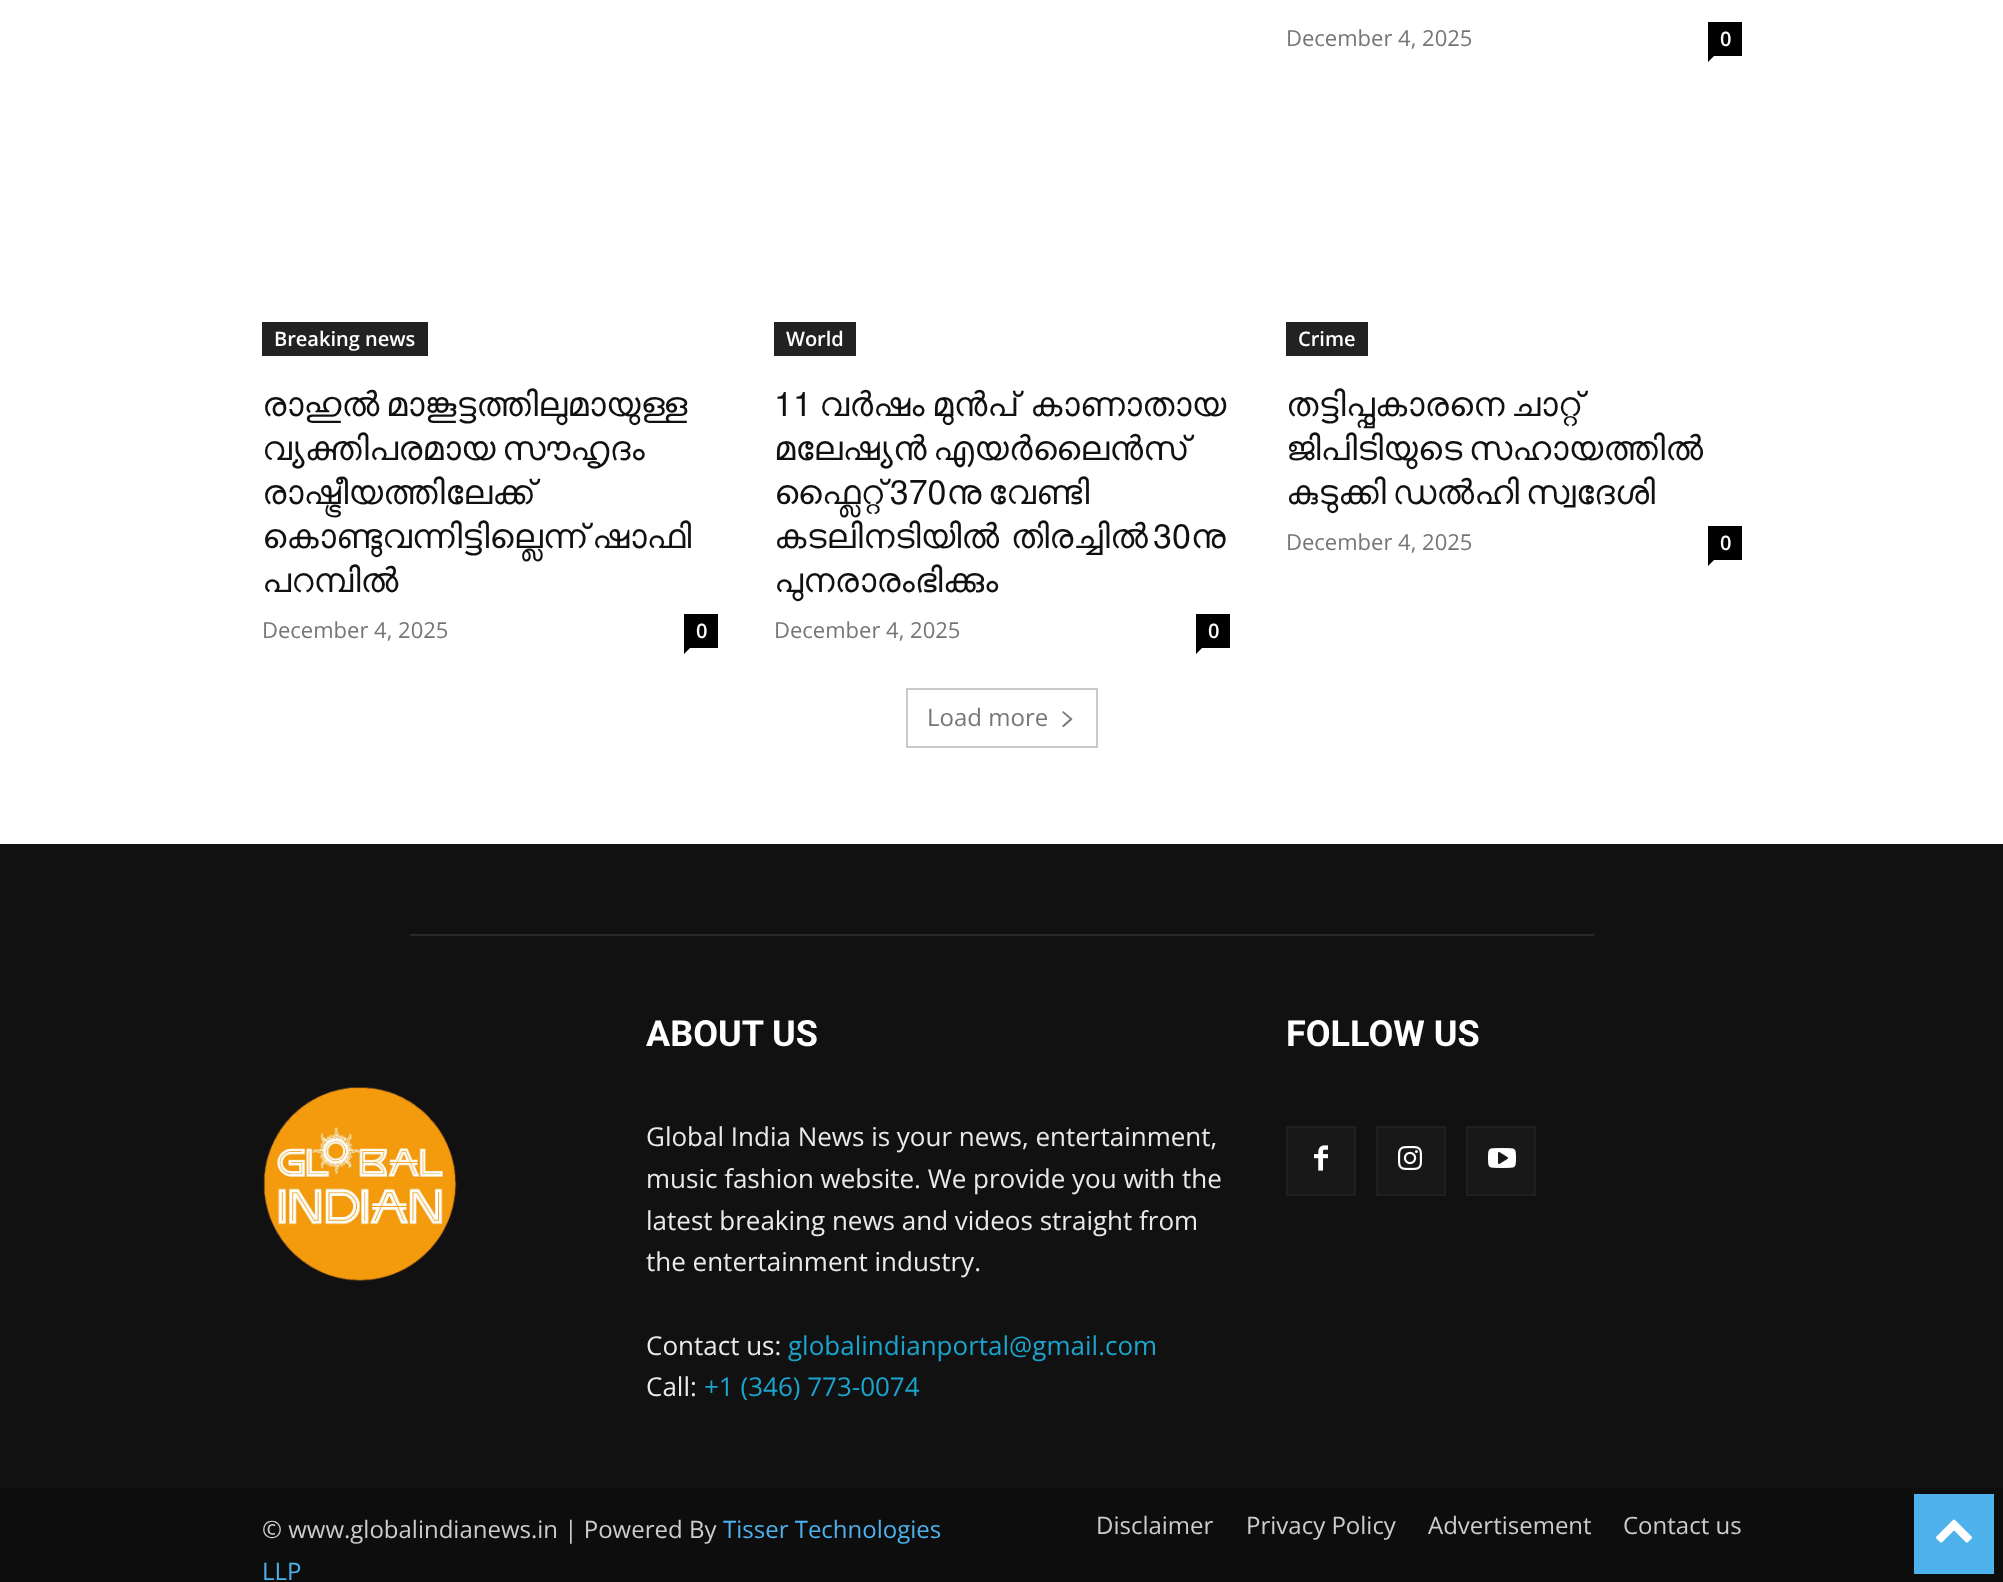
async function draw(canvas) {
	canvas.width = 2003;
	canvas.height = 1582;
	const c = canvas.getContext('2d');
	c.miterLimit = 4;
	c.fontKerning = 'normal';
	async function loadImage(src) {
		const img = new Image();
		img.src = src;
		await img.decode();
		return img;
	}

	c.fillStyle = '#fff';
	c.fillRect(0, 0, 2003, 1582);
	c.font = '22px Open Sans';
	c.fillStyle = '#767676';
	c.fillText('December 4, 2025', 1286, 46);
	c.fillStyle = '#000';
	c.fillRect(1708, 22, 34, 34);
	c.font = '600 20px Open Sans';
	c.fillStyle = '#fff';
	c.fillText('0', 1720, 46);
	c.fillStyle = '#000';
	c.beginPath();
	c.moveTo(1708, 56);
	c.lineTo(1714, 56);
	c.lineTo(1708, 62);
	c.closePath();
	c.fill();
	c.fillStyle = '#222';
	c.fillRect(262, 322, 166, 34);
	c.fillStyle = '#fff';
	c.fillText('Breaking news', 274, 346);
	c.wordSpacing = '-2px';
	c.font = '34px FreeSans';
	c.fillStyle = '#111';
	c.fillText('രാഹുല്‍ മാങ്കൂട്ടത്തിലുമായുള്ള', 262, 416);
	c.fillText('വ്യക്തിപരമായ സൗഹൃദം', 262, 460);
	c.wordSpacing = '0px';
	c.fillText('രാഷ്ട്രീയത്തിലേക്ക്', 262, 504);
	c.wordSpacing = '-2px';
	c.fillText('കൊണ്ടുവന്നിട്ടില്ലെന്ന് ഷാഫി', 262, 548);
	c.wordSpacing = '0px';
	c.fillText('പറമ്പില്‍', 262, 592);
	c.font = '22px Open Sans';
	c.fillStyle = '#767676';
	c.fillText('December 4, 2025', 262, 638);
	c.fillStyle = '#000';
	c.fillRect(684, 614, 34, 34);
	c.font = '600 20px Open Sans';
	c.fillStyle = '#fff';
	c.fillText('0', 696, 638);
	c.fillStyle = '#000';
	c.beginPath();
	c.moveTo(684, 648);
	c.lineTo(690, 648);
	c.lineTo(684, 654);
	c.closePath();
	c.fill();
	c.fillStyle = '#222';
	c.fillRect(774, 322, 82, 34);
	c.fillStyle = '#fff';
	c.fillText('World', 786, 346);
	c.wordSpacing = '-1px';
	c.font = '34px FreeSans';
	c.fillStyle = '#111';
	c.fillText('11 വർഷം മുൻപ്', 774, 416);
	c.wordSpacing = '0px';
	c.fillText('കാണാതായ', 1030, 416);
	c.wordSpacing = '-2px';
	c.fillText('മലേഷ്യൻ എയർലൈൻസ്', 774, 460);
	c.fillText('ഫ്ലൈറ്റ് 370നു വേണ്ടി', 774, 504);
	c.wordSpacing = '3px';
	c.fillText('കടലിനടിയിൽ തിരച്ചിൽ', 774, 548);
	c.wordSpacing = '0px';
	c.fillText('30നു', 1153, 548);
	c.fillText('പുനരാരംഭിക്കും', 774, 592);
	c.font = '22px Open Sans';
	c.fillStyle = '#767676';
	c.fillText('December 4, 2025', 774, 638);
	c.fillStyle = '#000';
	c.fillRect(1196, 614, 34, 34);
	c.font = '600 20px Open Sans';
	c.fillStyle = '#fff';
	c.fillText('0', 1208, 638);
	c.fillStyle = '#000';
	c.beginPath();
	c.moveTo(1196, 648);
	c.lineTo(1202, 648);
	c.lineTo(1196, 654);
	c.closePath();
	c.fill();
	c.fillStyle = '#222';
	c.fillRect(1286, 322, 82, 34);
	c.fillStyle = '#fff';
	c.fillText('Crime', 1298, 346);
	c.wordSpacing = '-2px';
	c.font = '34px FreeSans';
	c.fillStyle = '#111';
	for (const [text, x, y] of [
		['തട്ടിപ്പുകാരനെ ചാറ്റ്', 1286, 416],
		['ജിപിടിയുടെ സഹായത്തില്‍', 1286, 460],
		['കുടുക്കി ഡല്‍ഹി സ്വദേശി', 1286, 504],
	]) {
		c.fillText(text, x, y);
	}
	c.wordSpacing = '0px';
	c.font = '22px Open Sans';
	c.fillStyle = '#767676';
	c.fillText('December 4, 2025', 1286, 550);
	c.fillStyle = '#000';
	c.fillRect(1708, 526, 34, 34);
	c.font = '600 20px Open Sans';
	c.fillStyle = '#fff';
	c.fillText('0', 1720, 550);
	c.fillStyle = '#000';
	c.beginPath();
	c.moveTo(1708, 560);
	c.lineTo(1714, 560);
	c.lineTo(1708, 566);
	c.closePath();
	c.fill();
	c.strokeStyle = '#c9c9c9';
	c.lineWidth = 2;
	c.strokeRect(907, 689, 190, 58);
	c.font = '24px Open Sans';
	c.fillStyle = '#767676';
	c.fillText('Load more', 927, 726);
	c.drawImage(await loadImage('img1.png'), 1062, 711, 11, 17);
	c.fillStyle = '#111';
	c.fillRect(0, 844, 2003, 644);
	c.fillStyle = '#292929';
	c.fillRect(410, 934, 1184, 2);
	c.font = 'bold 36px Roboto';
	c.fillStyle = '#fff';
	c.fillText('ABOUT US', 646, 1046);
	c.font = '26px Open Sans';
	c.fillStyle = '#eaeaea';
	for (const [text, x, y] of [
		['Global India News is your news, entertainment,', 646, 1146],
		['music fashion website. We provide you with the', 646, 1188],
		['latest breaking news and videos straight from', 646, 1230],
		['the entertainment industry.', 646, 1271],
		['Contact us:', 646, 1355],
	]) {
		c.fillText(text, x, y);
	}
	c.fillStyle = '#1aa4ce';
	c.fillText('globalindianportal@gmail.com', 788, 1355);
	c.fillStyle = '#eaeaea';
	c.fillText('Call:', 646, 1396);
	c.fillStyle = '#1aa4ce';
	c.fillText('+1 (346) 773-0074', 704, 1396);
	c.font = 'bold 36px Roboto';
	c.fillStyle = '#fff';
	c.fillText('FOLLOW US', 1286, 1046);
	c.fillStyle = '#181818';
	c.beginPath();
	c.rect(1287, 1127, 68, 68);
	c.fill();
	c.strokeStyle = '#1f1f1f';
	c.stroke();
	c.drawImage(await loadImage('img2.png'), 1314, 1145, 14, 26);
	c.beginPath();
	c.rect(1377, 1127, 68, 68);
	c.fill();
	c.stroke();
	c.drawImage(await loadImage('img3.png'), 1398, 1146, 24, 24);
	c.beginPath();
	c.rect(1467, 1127, 68, 68);
	c.fill();
	c.stroke();
	c.drawImage(await loadImage('img4.png'), 1488, 1148, 28, 20);
	c.drawImage(await loadImage('img5.png'), 263, 1087, 194, 194);
	c.fillStyle = '#0d0d0d';
	c.fillRect(0, 1488, 2003, 94);
	c.font = '24px Open Sans';
	c.fillStyle = '#ccc';
	c.fillText('© www.globalindianews.in | Powered By', 262, 1538);
	c.fillStyle = '#4db2ec';
	c.fillText('Tisser Technologies', 723, 1538);
	c.fillText('LLP', 262, 1580);
	c.fillStyle = '#ccc';
	for (const [text, x, y] of [
		['Disclaimer', 1096, 1534],
		['Privacy Policy', 1246, 1534],
		['Advertisement', 1428, 1534],
		['Contact us', 1623, 1534],
	]) {
		c.fillText(text, x, y);
	}
	c.fillStyle = '#4db2ec';
	c.fillRect(1914, 1494, 80, 80);
	c.drawImage(await loadImage('img6.png'), 1936, 1519, 36, 24);
}

draw(document.querySelector('canvas'));
